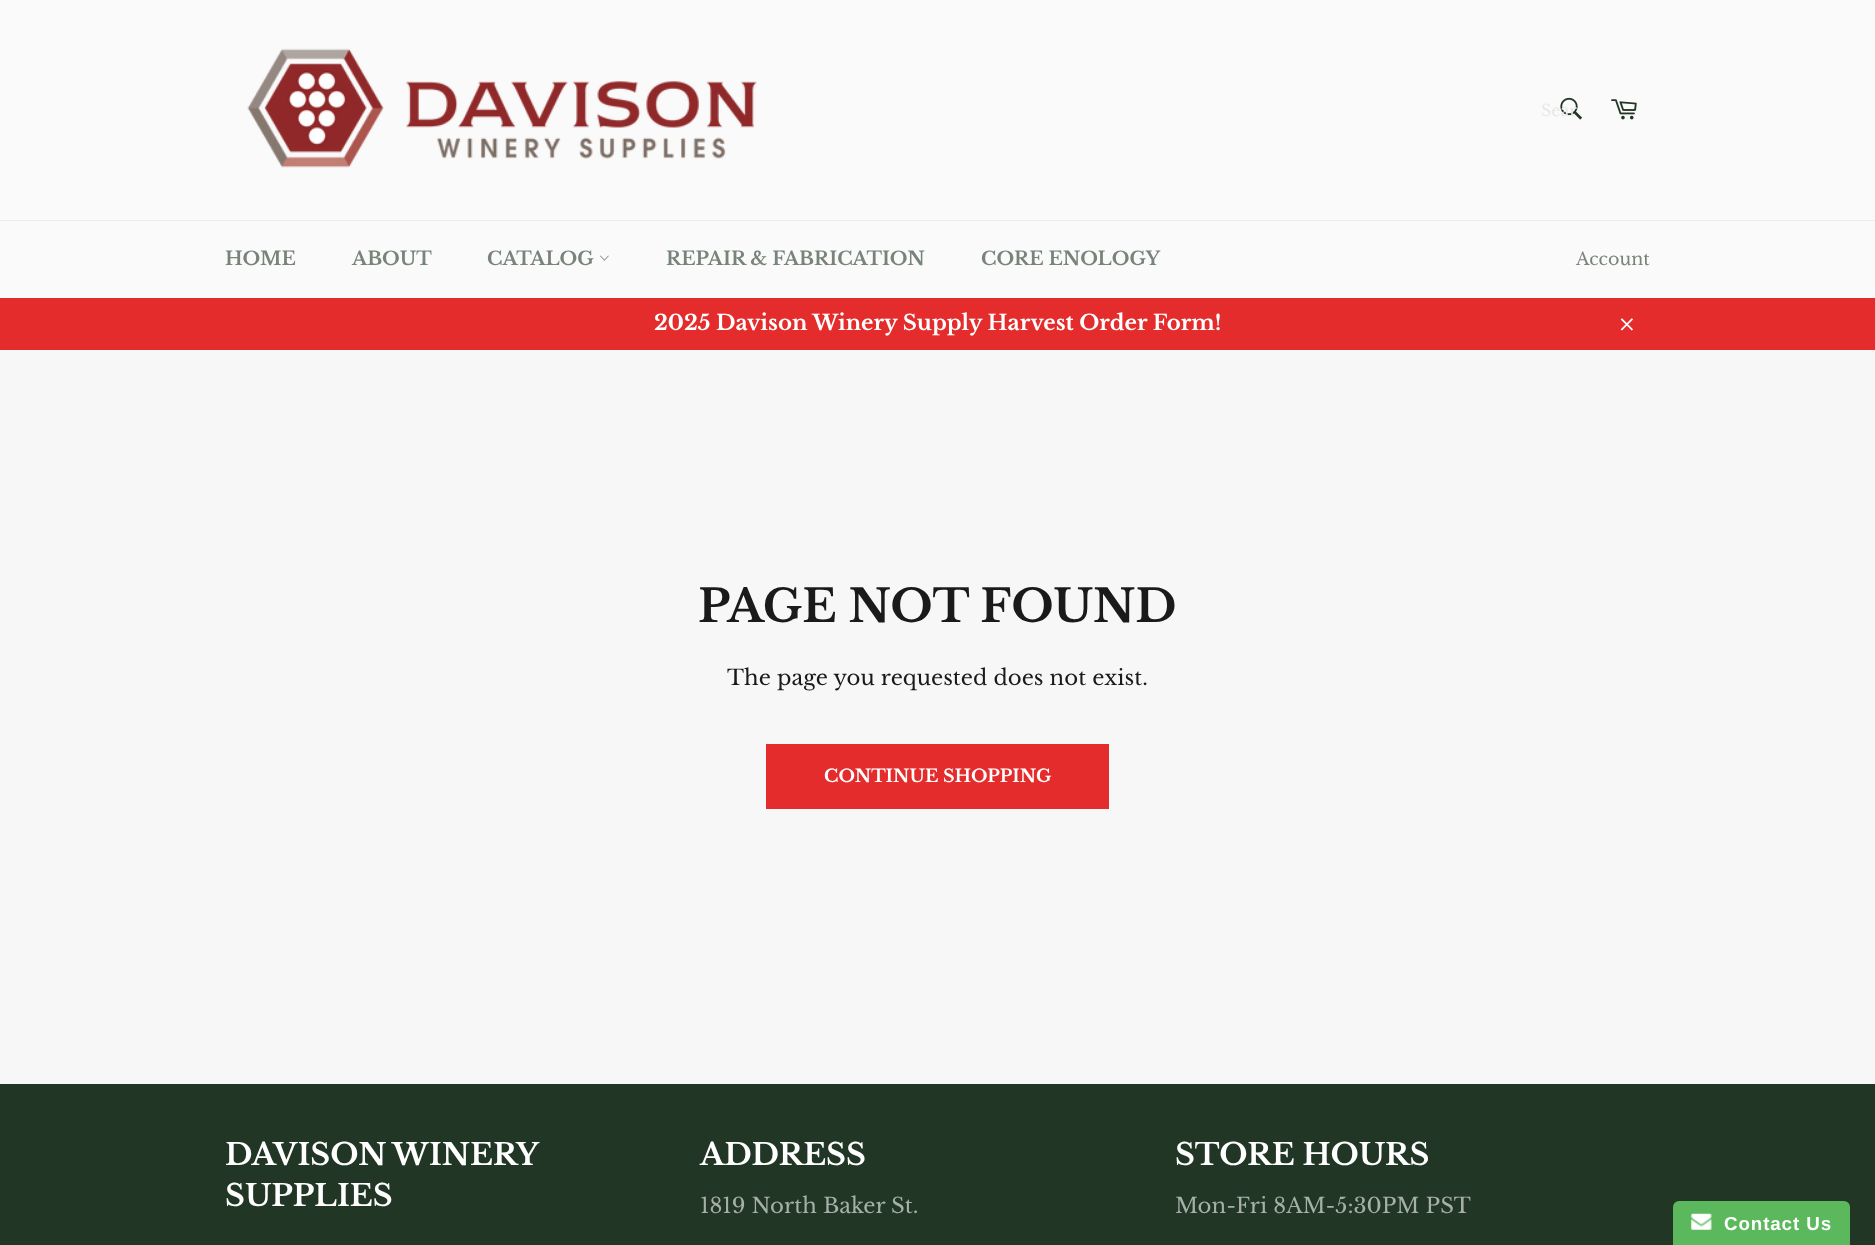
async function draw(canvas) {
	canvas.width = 1875;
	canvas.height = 1245;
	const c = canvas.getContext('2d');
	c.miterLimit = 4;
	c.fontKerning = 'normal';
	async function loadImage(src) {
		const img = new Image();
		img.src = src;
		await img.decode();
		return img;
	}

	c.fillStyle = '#f7f7f7';
	c.fillRect(0, 0, 1875, 1245);
	c.fillStyle = '#fafafa';
	c.fillRect(0, 0, 1875, 220);
	c.drawImage(await loadImage('img1.png'), 247, 48, 510, 120);
	c.drawImage(await loadImage('img2.png'), 1560, 97, 22, 23);
	c.font = '16px Libre Baskerville';
	c.fillStyle = '#e6e8e7';
	c.fillText('Sear', 1541, 116);
	c.drawImage(await loadImage('img3.png'), 1611, 99, 26, 21);
	c.fillStyle = '#fafafa';
	c.fillRect(0, 221, 1875, 77);
	c.fillStyle = '#ededed';
	c.fillRect(0, 220, 1875, 1);
	c.font = 'bold 18.75px Libre Baskerville';
	c.fillStyle = '#78847a';
	for (const [text, x, y] of [
		['HOME', 225, 265],
		['ABOUT', 352, 265],
		['CATALOG', 487, 265],
	]) {
		c.fillText(text, x, y);
	}
	c.drawImage(await loadImage('img4.png'), 600, 255, 9, 6);
	c.fillText('REPAIR & FABRICATION', 666, 265);
	c.fillText('CORE ENOLOGY', 981, 265);
	c.font = '17.5px Libre Baskerville';
	c.fillText('Account', 1576, 265);
	c.fillStyle = '#e32c2b';
	c.fillRect(0, 298, 1875, 52);
	c.font = 'bold 21.25px Libre Baskerville';
	c.fillStyle = '#fff';
	c.fillText('2025 Davison Winery Supply Harvest Order Form!', 654, 330);
	c.drawImage(await loadImage('img5.png'), 1620, 318, 13, 13);
	c.font = 'bold 45px Libre Baskerville';
	c.fillStyle = '#1a1a1a';
	c.fillText('PAGE NOT FOUND', 698, 622);
	c.font = '21.25px Libre Baskerville';
	c.fillText('The page you requested does not exist.', 727, 685);
	c.fillStyle = '#e32c2b';
	c.fillRect(766, 744, 343, 65);
	c.font = 'bold 17.5px Libre Baskerville';
	c.fillStyle = '#fff';
	c.fillText('CONTINUE SHOPPING', 824, 782);
	c.fillStyle = '#213625';
	c.fillRect(0, 1084, 1875, 161);
	c.wordSpacing = '-1px';
	c.font = 'bold 30px Libre Baskerville';
	c.fillStyle = '#fff';
	c.fillText('DAVISON WINERY', 225, 1165);
	c.wordSpacing = '0px';
	c.fillText('SUPPLIES', 225, 1206);
	c.fillText('ADDRESS', 700, 1165);
	c.font = '21.25px Libre Baskerville';
	c.fillStyle = '#a6afa8';
	c.fillText('1819 North Baker St.', 700, 1213);
	c.font = 'bold 30px Libre Baskerville';
	c.fillStyle = '#fff';
	c.fillText('STORE HOURS', 1175, 1165);
	c.font = '21.25px Libre Baskerville';
	c.fillStyle = '#a6afa8';
	c.fillText('Mon-Fri 8AM-5:30PM PST', 1175, 1213);
	c.fillStyle = '#5cb85c';
	c.beginPath();
	c.roundRect(1673, 1201, 177, 44, [6, 6, 0, 0]);
	c.fill();
	c.drawImage(await loadImage('img6.png'), 1691, 1213, 21, 17);
	c.letterSpacing = '0.9px';
	c.font = 'bold 18.75px Liberation Sans';
	c.fillStyle = '#fff';
	c.fillText('Contact Us', 1724, 1230);
}

draw(document.querySelector('canvas'));
